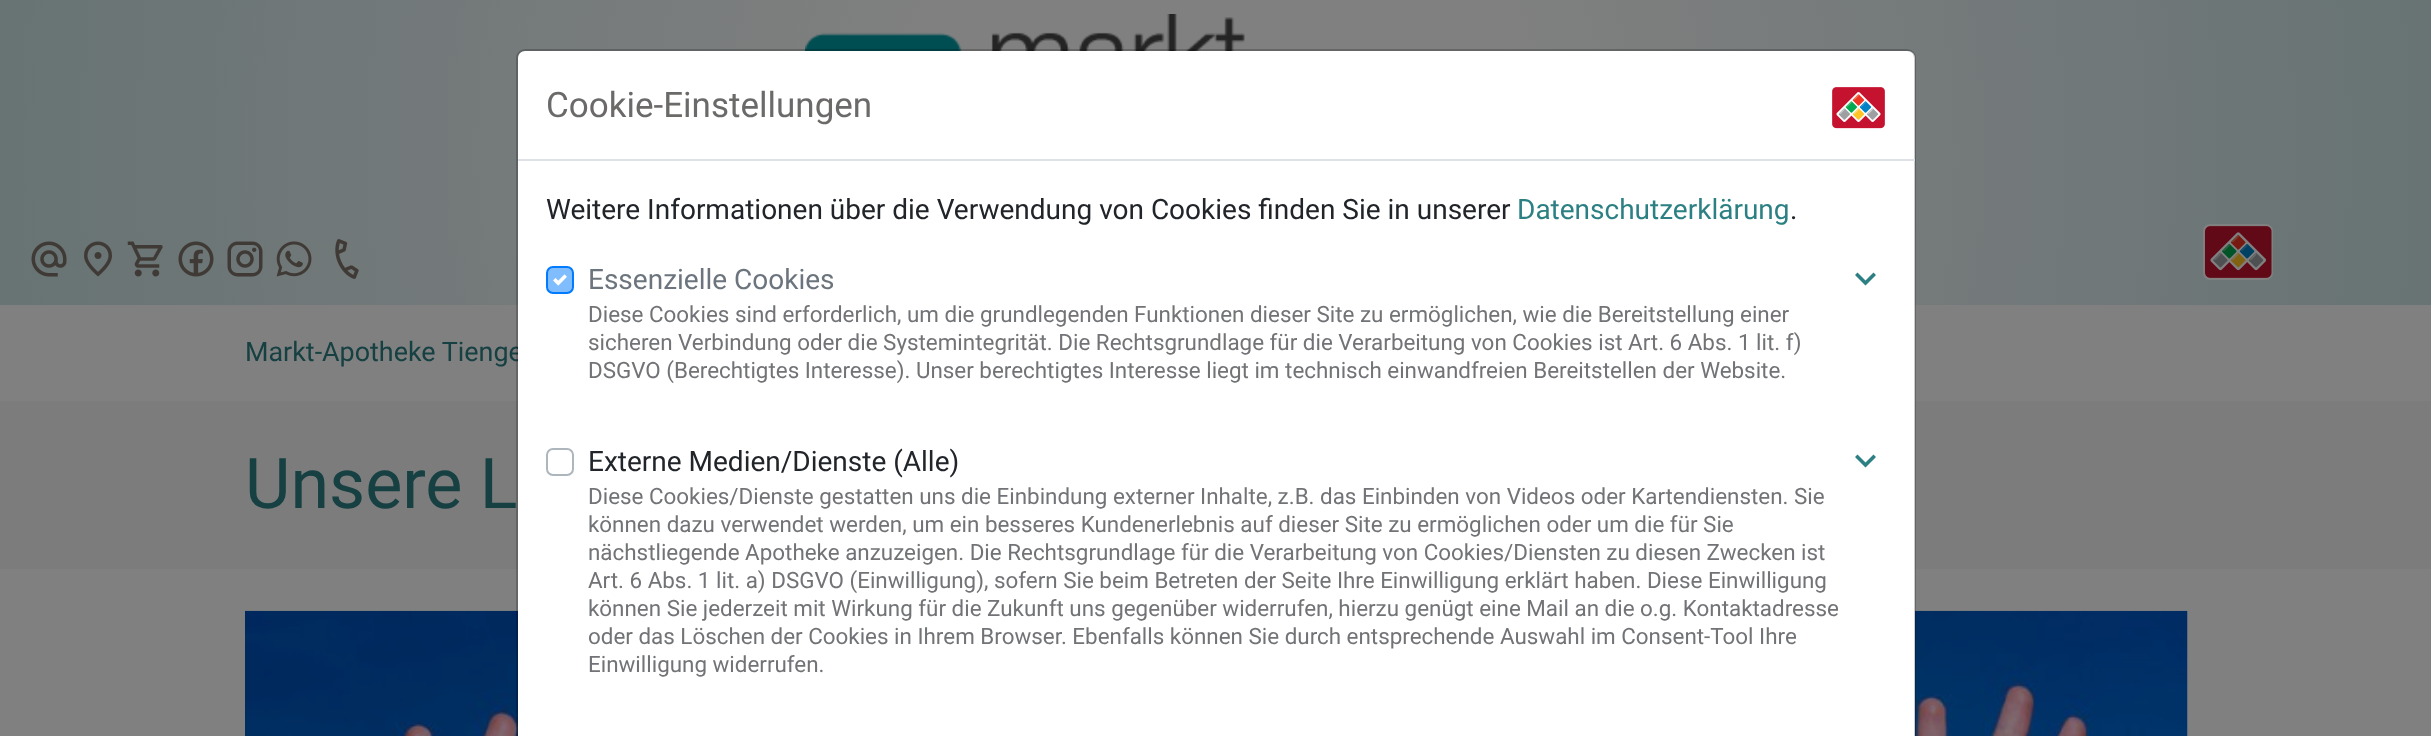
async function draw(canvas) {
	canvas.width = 2431;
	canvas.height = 736;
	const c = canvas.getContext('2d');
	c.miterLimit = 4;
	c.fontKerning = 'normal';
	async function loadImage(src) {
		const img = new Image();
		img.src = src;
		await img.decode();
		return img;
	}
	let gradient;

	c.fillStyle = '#7c7c7c';
	c.fillRect(0, 0, 2431, 736);
	c.fillStyle = '#808080';
	c.fillRect(0, 0, 2431, 401);
	gradient = c.createRadialGradient(1216, 152, 0, 1216, 152, 1226);
	gradient.addColorStop(0.24, '#1a4b4e00');
	gradient.addColorStop(1, '#1a4b4e3d');
	c.fillStyle = gradient;
	c.fillRect(0, 0, 2431, 305);
	c.drawImage(await loadImage('img1.png'), 805, 14, 440, 37);
	c.drawImage(await loadImage('img2.png'), 31, 241, 36, 36);
	c.drawImage(await loadImage('img3.png'), 84, 241, 28, 36);
	c.drawImage(await loadImage('img4.png'), 127, 241, 36, 36);
	c.drawImage(await loadImage('img5.png'), 178, 241, 36, 36);
	c.drawImage(await loadImage('img6.png'), 227, 241, 36, 36);
	c.drawImage(await loadImage('img7.png'), 276, 241, 36, 36);
	c.drawImage(await loadImage('img8.png'), 335, 239, 24, 40);
	c.drawImage(await loadImage('img9.png'), 2203, 224, 70, 56);
	c.font = '26.9px Roboto';
	c.fillStyle = '#164042';
	c.fillText('Markt-Apotheke Tienge', 245, 361);
	c.font = '70px Roboto';
	c.fillText('Unsere L', 245, 508);
	c.fillStyle = '#808080';
	c.fillRect(0, 569, 2431, 167);
	c.drawImage(await loadImage('img10.png'), 245, 610, 1943, 126);
	c.fillStyle = '#fff';
	c.beginPath();
	c.moveTo(525, 51);
	c.lineTo(1908, 51);
	c.bezierCurveTo(1912, 51, 1915, 54, 1915, 58);
	c.lineTo(1915, 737);
	c.lineTo(518, 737);
	c.lineTo(518, 58);
	c.bezierCurveTo(518, 54, 521, 51, 525, 51);
	c.closePath();
	c.fill();
	c.beginPath();
	c.roundRect(517, 50, 1398, 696, 8);
	c.strokeStyle = '#00000033';
	c.lineWidth = 2;
	c.stroke();
	c.fillStyle = '#dee2e6';
	c.fillRect(518, 159, 1397, 2);
	c.font = '35px Roboto';
	c.fillStyle = '#6c6a69';
	c.fillText('Cookie-Einstellungen', 546, 117);
	c.drawImage(await loadImage('img11.png'), 1832, 87, 53, 42);
	c.font = '28px Roboto';
	c.fillStyle = '#212529';
	c.fillText('Weitere Informationen über die Verwendung von Cookies finden Sie in unserer', 546, 219);
	c.fillStyle = '#2c8084';
	c.fillText('Datenschutzerklärung', 1517, 219);
	c.fillStyle = '#212529';
	c.fillText('.', 1790, 219);
	c.fillStyle = '#80bdff';
	c.beginPath();
	c.roundRect(547, 267, 26, 26, 6);
	c.fill();
	c.strokeStyle = '#007bff';
	c.stroke();
	c.fillStyle = '#6c757d';
	c.fillText('Essenzielle Cookies', 588, 289);
	c.drawImage(await loadImage('img12.png'), 553, 274, 14, 12);
	c.fillStyle = '#2c8084';
	c.beginPath();
	c.moveTo(1857.5, 272.5);
	c.lineTo(1865.5, 280.5);
	c.lineTo(1873.5, 272.5);
	c.lineTo(1876, 275);
	c.lineTo(1865.5, 285.5);
	c.lineTo(1855, 275);
	c.closePath();
	c.fill();
	c.font = '22.4px Roboto';
	c.fillStyle = '#717376';
	for (const [text, x, y] of [
		['Diese Cookies sind erforderlich, um die grundlegenden Funktionen dieser Site zu ermöglichen, wie die Bereitstellung einer', 588, 322],
		['sicheren Verbindung oder die Systemintegrität. Die Rechtsgrundlage für die Verarbeitung von Cookies ist Art. 6 Abs. 1 lit. f)', 588, 350],
		['DSGVO (Berechtigtes Interesse). Unser berechtigtes Interesse liegt im technisch einwandfreien Bereitstellen der Website.', 588, 378],
	]) {
		c.fillText(text, x, y);
	}
	c.beginPath();
	c.roundRect(547, 449, 26, 26, 6);
	c.strokeStyle = '#adb5bd';
	c.stroke();
	c.font = '28px Roboto';
	c.fillStyle = '#212529';
	c.fillText('Externe Medien/Dienste (Alle)', 588, 471);
	c.fillStyle = '#2c8084';
	c.beginPath();
	c.moveTo(1857.5, 454.5);
	c.lineTo(1865.5, 462.5);
	c.lineTo(1873.5, 454.5);
	c.lineTo(1876, 457);
	c.lineTo(1865.5, 467.5);
	c.lineTo(1855, 457);
	c.closePath();
	c.fill();
	c.font = '22.4px Roboto';
	c.fillStyle = '#717376';
	for (const [text, x, y] of [
		['Diese Cookies/Dienste gestatten uns die Einbindung externer Inhalte, z.B. das Einbinden von Videos oder Kartendiensten.', 588, 504],
		['Sie', 1794, 504],
		['können dazu verwendet werden, um ein besseres Kundenerlebnis auf dieser Site zu ermöglichen oder um die für Sie', 588, 532],
		['nächstliegende Apotheke anzuzeigen. Die Rechtsgrundlage für die Verarbeitung von Cookies/Diensten zu diesen Zwecken ist', 588, 560],
		['Art. 6 Abs. 1 lit. a) DSGVO (Einwilligung), sofern Sie beim Betreten der Seite Ihre Einwilligung erklärt haben. Diese Einwilligung', 588, 588],
		['können Sie jederzeit mit Wirkung für die Zukunft uns gegenüber widerrufen, hierzu genügt eine Mail an die o.g. Kontaktadresse', 588, 616],
		['oder das Löschen der Cookies in Ihrem Browser. Ebenfalls können Sie durch entsprechende Auswahl im Consent-Tool Ihre', 588, 644],
		['Einwilligung widerrufen.', 588, 672],
	]) {
		c.fillText(text, x, y);
	}
}

draw(document.querySelector('canvas'));
